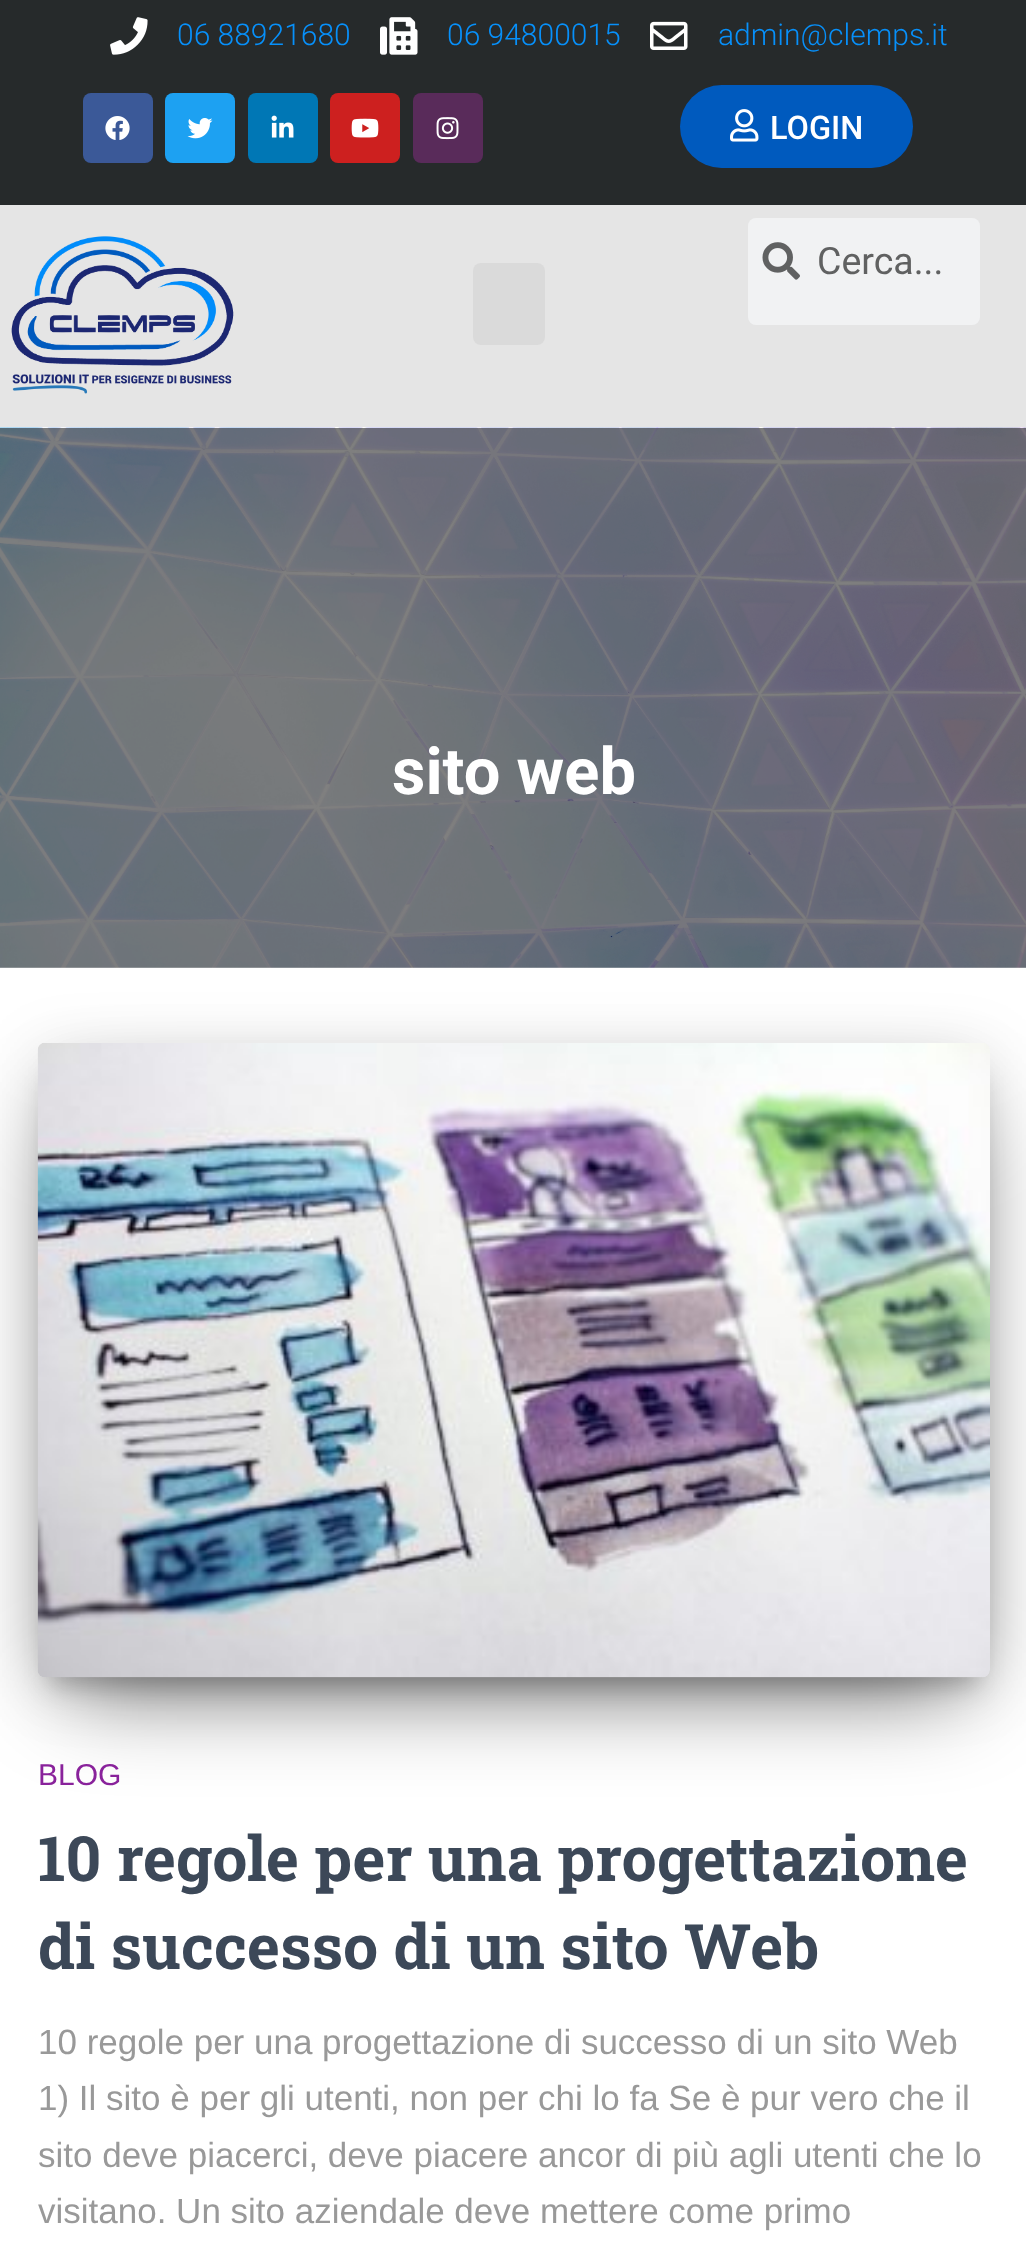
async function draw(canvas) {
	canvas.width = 1026;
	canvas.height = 2267;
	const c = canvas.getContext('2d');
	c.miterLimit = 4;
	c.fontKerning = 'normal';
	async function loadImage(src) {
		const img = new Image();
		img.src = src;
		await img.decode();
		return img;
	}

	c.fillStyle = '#e5e5e5';
	c.fillRect(0, 0, 1026, 2267);
	c.fillStyle = '#262a2b';
	c.fillRect(0, 0, 1026, 205);
	c.drawImage(await loadImage('img1.png'), 110, 17, 38, 38);
	c.font = '300 30px Roboto';
	c.fillStyle = '#0790fa';
	c.fillText('06 88921680', 177, 45);
	c.drawImage(await loadImage('img2.png'), 380, 17, 38, 38);
	c.fillText('06 94800015', 447, 45);
	c.drawImage(await loadImage('img3.png'), 650, 21, 38, 29);
	c.fillText('admin@clemps.it', 718, 45);
	c.fillStyle = '#3b5998';
	c.beginPath();
	c.roundRect(83, 93, 70, 70, 8);
	c.fill();
	c.drawImage(await loadImage('img4.png'), 105, 116, 25, 24);
	c.fillStyle = '#1da1f2';
	c.beginPath();
	c.roundRect(165, 93, 70, 70, 8);
	c.fill();
	c.drawImage(await loadImage('img5.png'), 187, 118, 26, 21);
	c.fillStyle = '#0077b5';
	c.beginPath();
	c.roundRect(248, 93, 70, 70, 8);
	c.fill();
	c.drawImage(await loadImage('img6.png'), 271, 115, 23, 23);
	c.fillStyle = '#cd201f';
	c.beginPath();
	c.roundRect(330, 93, 70, 70, 8);
	c.fill();
	c.drawImage(await loadImage('img7.png'), 351, 118, 28, 20);
	c.fillStyle = '#592b5a';
	c.beginPath();
	c.roundRect(413, 93, 70, 70, 8);
	c.fill();
	c.drawImage(await loadImage('img8.png'), 436, 117, 23, 23);
	c.fillStyle = '#005abe';
	c.beginPath();
	c.roundRect(680, 85, 233, 83, 41.5);
	c.fill();
	c.drawImage(await loadImage('img9.png'), 730, 109, 29, 33);
	c.font = '500 32.5px Roboto';
	c.fillStyle = '#fff';
	c.fillText('LOGIN', 770, 139);
	c.drawImage(await loadImage('img10.png'), 11, 236, 223, 158);
	c.fillStyle = '#dadada';
	c.beginPath();
	c.roundRect(473, 263, 72, 82, 8);
	c.fill();
	c.fillStyle = '#f1f2f3';
	c.beginPath();
	c.roundRect(748, 218, 232, 107, 8);
	c.fill();
	c.drawImage(await loadImage('img11.png'), 762, 242, 38, 38);
	c.font = '37.5px Roboto';
	c.fillStyle = '#606161';
	c.fillText('Cerca...', 817, 274);
	c.drawImage(await loadImage('img12.png'), 0, 427, 1026, 541);
	c.font = 'bold 65px Roboto';
	c.fillStyle = '#fff';
	c.fillText('sito web', 392, 794);
	c.fillRect(0, 968, 1026, 1299);
	c.fillStyle = '#00000033';
	c.filter = 'blur(12.5px)';
	c.beginPath();
	c.rect(50, 1075, 928, 610);
	c.fill();
	c.filter = 'none';
	c.fillStyle = '#0000001f';
	c.filter = 'blur(31px)';
	c.beginPath();
	c.roundRect(38, 1053, 952, 635, 8);
	c.fill();
	c.filter = 'none';
	c.fillStyle = '#0000008f';
	c.filter = 'blur(47.5px)';
	c.beginPath();
	c.rect(68, 1113, 892, 575);
	c.fill();
	c.filter = 'none';
	c.drawImage(await loadImage('img13.png'), 37, 1043, 953, 635);
	c.font = '30px Liberation Sans';
	c.fillStyle = '#89229b';
	c.fillText('BLOG', 38, 1785);
	c.font = 'bold 62.5px Roboto Slab';
	c.fillStyle = '#3c4858';
	c.fillText('10 regole per una progettazione', 38, 1881);
	c.fillText('di successo di un sito Web', 38, 1969);
	c.font = '35px Liberation Sans';
	c.fillStyle = '#999';
	for (const [text, x, y] of [
		['10 regole per una progettazione di successo di un sito Web', 38, 2054],
		['1) Il sito è per gli utenti, non per chi lo fa Se è pur vero che il', 38, 2110],
		['sito deve piacerci, deve piacere ancor di più agli utenti che lo', 38, 2167],
		['visitano. Un sito aziendale deve mettere come primo', 38, 2223],
	]) {
		c.fillText(text, x, y);
	}
}

draw(document.querySelector('canvas'));
